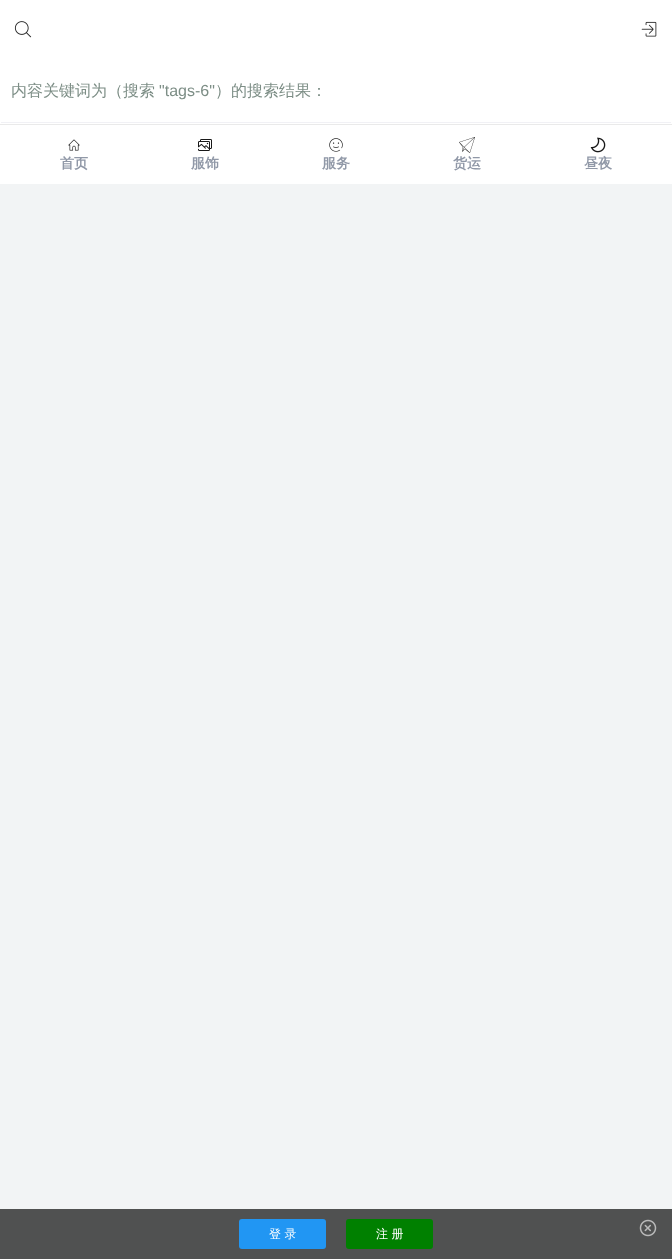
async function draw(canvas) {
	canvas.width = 672;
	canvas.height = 1259;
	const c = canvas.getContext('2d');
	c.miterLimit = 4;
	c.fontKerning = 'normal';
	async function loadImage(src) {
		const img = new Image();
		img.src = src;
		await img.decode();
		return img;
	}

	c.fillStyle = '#f2f4f5';
	c.fillRect(0, 0, 672, 1259);
	c.fillStyle = '#fff';
	c.fillRect(0, 0, 672, 124);
	c.drawImage(await loadImage('img1.png'), 14, 21, 18, 17);
	c.drawImage(await loadImage('img2.png'), 641, 21, 16, 16);
	c.fillStyle = '#f1f1f5';
	c.fillRect(1, 122, 670, 1);
	c.font = '500 16px WenQuanYi Zen Hei';
	c.fillStyle = '#7d8e86';
	c.fillText('内容关键词为（搜索', 11, 96);
	c.font = '16px Liberation Sans';
	c.fillText('"tags-6"', 159, 96);
	c.font = '500 16px WenQuanYi Zen Hei';
	c.fillText('）的搜索结果：', 215, 96);
	c.fillStyle = '#fff';
	c.fillRect(0, 125, 672, 59);
	c.fillStyle = '#eaeaea';
	c.fillRect(0, 124, 672, 1);
	c.drawImage(await loadImage('img3.png'), 68, 139, 12, 12);
	c.font = 'bold 14px WenQuanYi Zen Hei';
	c.fillStyle = '#9098a7';
	c.fillText('首页', 60, 168);
	c.drawImage(await loadImage('img4.png'), 198, 139, 14, 12);
	c.fillText('服饰', 191, 168);
	c.drawImage(await loadImage('img5.png'), 329, 138, 14, 14);
	c.fillText('服务', 322, 168);
	c.drawImage(await loadImage('img6.png'), 459, 137, 16, 16);
	c.fillText('货运', 453, 168);
	c.drawImage(await loadImage('img7.png'), 590, 137, 16, 16);
	c.fillText('昼夜', 584, 168);
	c.fillStyle = '#505151';
	c.fillRect(0, 1209, 672, 50);
	c.fillStyle = '#2196f3';
	c.beginPath();
	c.roundRect(239, 1219, 87, 30, 3);
	c.fill();
	c.font = '500 12px WenQuanYi Zen Hei';
	c.fillStyle = '#fff';
	c.fillText('登 录', 269, 1238);
	c.fillStyle = '#008000';
	c.beginPath();
	c.roundRect(346, 1219, 87, 30, 3);
	c.fill();
	c.fillStyle = '#fff';
	c.fillText('注 册', 376, 1238);
	c.drawImage(await loadImage('img8.png'), 639, 1219, 18, 18);
}

draw(document.querySelector('canvas'));
